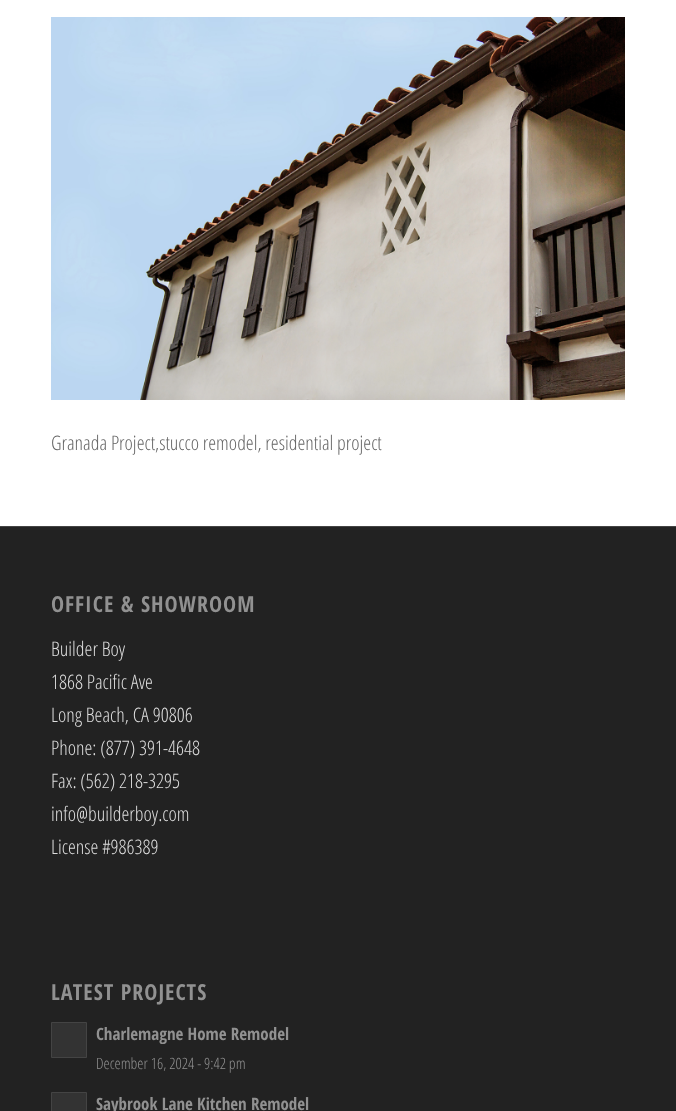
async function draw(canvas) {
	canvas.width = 676;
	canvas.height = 1111;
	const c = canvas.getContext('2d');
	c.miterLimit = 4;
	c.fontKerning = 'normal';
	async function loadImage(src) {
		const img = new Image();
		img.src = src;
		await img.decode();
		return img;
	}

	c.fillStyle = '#fff';
	c.fillRect(0, 0, 676, 1111);
	c.drawImage(await loadImage('img1.png'), 51, 17, 574, 383);
	c.font = '300 20px Open Sans Condensed';
	c.fillStyle = '#666';
	c.fillText('Granada Project,stucco remodel, residential project', 51, 450);
	c.fillStyle = '#222';
	c.fillRect(0, 527, 676, 584);
	c.fillStyle = '#444';
	c.fillRect(0, 526, 676, 1);
	c.letterSpacing = '1px';
	c.font = 'bold 22px Open Sans Condensed';
	c.fillStyle = '#919191';
	c.fillText('OFFICE & SHOWROOM', 51, 612);
	c.letterSpacing = '0px';
	c.font = '300 20px Open Sans Condensed';
	c.fillStyle = '#ddd';
	for (const [text, x, y] of [
		['Builder Boy', 51, 656],
		['1868 Pacific Ave', 51, 689],
		['Long Beach, CA 90806', 51, 722],
		['Phone: (877) 391-4648', 51, 755],
		['Fax: (562) 218-3295', 51, 788],
		['info@builderboy.com', 51, 821],
		['License #986389', 51, 854],
	]) {
		c.fillText(text, x, y);
	}
	c.letterSpacing = '1px';
	c.font = 'bold 22px Open Sans Condensed';
	c.fillStyle = '#919191';
	c.fillText('LATEST PROJECTS', 51, 1000);
	c.fillStyle = '#333';
	c.beginPath();
	c.rect(51.5, 1022.5, 35, 35);
	c.fill();
	c.strokeStyle = '#444';
	c.stroke();
	c.letterSpacing = '0px';
	c.font = 'bold 17px Open Sans Condensed';
	c.fillStyle = '#919191';
	c.fillText('Charlemagne Home Remodel', 96, 1040);
	c.font = '300 15.6px Open Sans Condensed';
	c.fillText('December 16, 2024 - 9:42 pm', 96, 1069);
	c.fillStyle = '#333';
	c.beginPath();
	c.rect(51.5, 1092.5, 35, 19);
	c.fill();
	c.stroke();
	c.font = 'bold 17px Open Sans Condensed';
	c.fillStyle = '#919191';
	c.fillText('Saybrook Lane Kitchen Remodel', 96, 1110);
}

draw(document.querySelector('canvas'));
